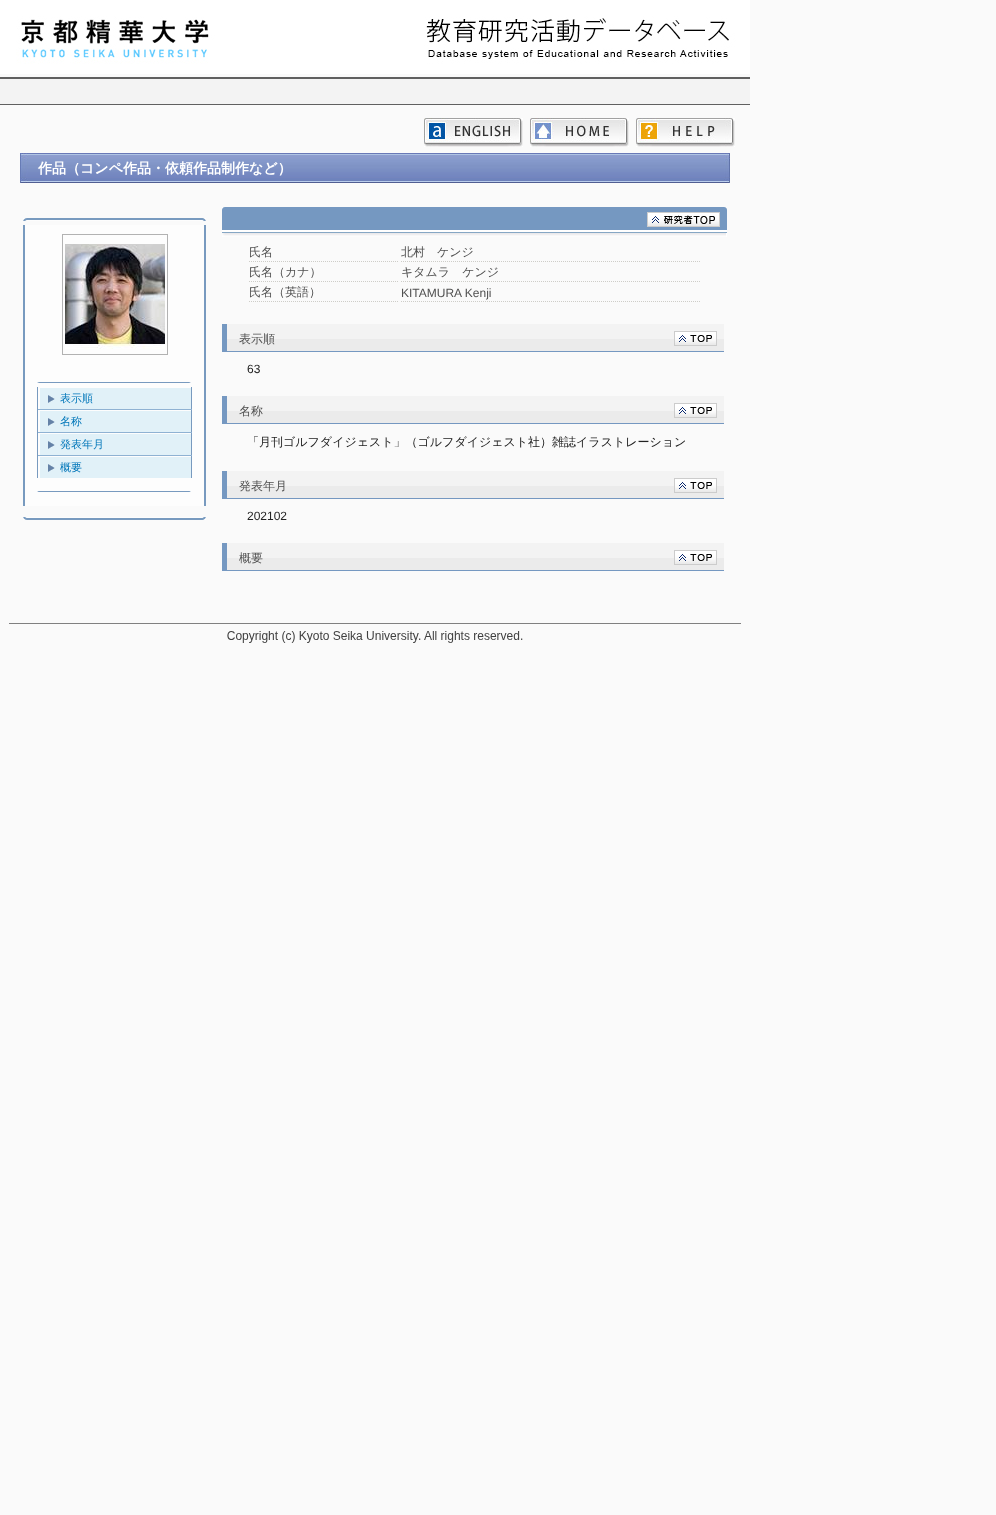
async function draw(canvas) {
	canvas.width = 996;
	canvas.height = 1515;
	const c = canvas.getContext('2d');
	c.miterLimit = 4;
	c.fontKerning = 'normal';
	async function loadImage(src) {
		const img = new Image();
		img.src = src;
		await img.decode();
		return img;
	}

	c.fillStyle = '#fafafa';
	c.fillRect(0, 0, 996, 1515);
	c.drawImage(await loadImage('img1.png'), 0, 0, 750, 74);
	for (const [x, y, w, h, color] of [
		[0, 79, 750, 25, '#f3f3f3'],
		[0, 77, 750, 2, '#606060'],
		[0, 104, 750, 1, '#606060'],
	]) {
		c.fillStyle = color;
		c.fillRect(x, y, w, h);
	}
	c.drawImage(await loadImage('img2.png'), 424, 118, 99, 29);
	c.drawImage(await loadImage('img3.png'), 530, 118, 99, 29);
	c.drawImage(await loadImage('img4.png'), 636, 118, 99, 29);
	c.drawImage(await loadImage('img5.png'), 20, 153, 710, 30);
	c.font = 'bold 14px WenQuanYi Zen Hei';
	c.fillStyle = '#fff';
	c.fillText('作品（コンペ作品・依頼作品制作など）', 38, 173);
	c.drawImage(await loadImage('img6.png'), 23, 218, 183, 3);
	c.drawImage(await loadImage('img7.png'), 23, 225, 183, 281);
	c.strokeStyle = '#b2b2b2';
	c.strokeRect(62.5, 234.5, 105, 120);
	c.drawImage(await loadImage('img8.png'), 65, 244, 100, 105);
	c.drawImage(await loadImage('img9.png'), 37, 382, 154, 1);
	for (const [x, y, w, h, color] of [
		[191, 387, 1, 91, '#789abf'],
		[37, 409, 155, 1, '#8fb2d3'],
		[37, 387, 1, 23, '#789abf'],
		[40, 388, 151, 21, '#e1f1f8'],
	]) {
		c.fillStyle = color;
		c.fillRect(x, y, w, h);
	}
	c.drawImage(await loadImage('img10.png'), 48, 395, 7, 8);
	c.font = '500 11px WenQuanYi Zen Hei';
	c.fillStyle = '#0076b9';
	c.fillText('表示順', 60, 402);
	for (const [x, y, w, h, color] of [
		[37, 432, 155, 1, '#8fb2d3'],
		[37, 410, 1, 23, '#789abf'],
		[40, 411, 151, 21, '#e1f1f8'],
	]) {
		c.fillStyle = color;
		c.fillRect(x, y, w, h);
	}
	c.drawImage(await loadImage('img10.png'), 48, 418, 7, 8);
	c.fillStyle = '#0076b9';
	c.fillText('名称', 60, 425);
	for (const [x, y, w, h, color] of [
		[37, 455, 155, 1, '#8fb2d3'],
		[37, 433, 1, 45, '#789abf'],
		[40, 434, 151, 21, '#e1f1f8'],
	]) {
		c.fillStyle = color;
		c.fillRect(x, y, w, h);
	}
	c.drawImage(await loadImage('img10.png'), 48, 441, 7, 8);
	c.fillStyle = '#0076b9';
	c.fillText('発表年月', 60, 448);
	c.fillStyle = '#e1f1f8';
	c.fillRect(40, 457, 151, 21);
	c.drawImage(await loadImage('img10.png'), 48, 464, 7, 8);
	c.fillStyle = '#0076b9';
	c.fillText('概要', 60, 471);
	c.drawImage(await loadImage('img11.png'), 37, 491, 154, 1);
	c.drawImage(await loadImage('img12.png'), 23, 517, 183, 3);
	c.drawImage(await loadImage('img13.png'), 222, 207, 505, 30);
	c.drawImage(await loadImage('img14.png'), 647, 212, 73, 15);
	c.beginPath();
	c.moveTo(249, 261.5);
	c.lineTo(399, 261.5);
	c.strokeStyle = '#cecdc8';
	c.setLineDash([1, 1]);
	c.stroke();
	c.font = '500 12px WenQuanYi Zen Hei';
	c.fillStyle = '#505050';
	c.fillText('氏名', 249, 256);
	c.beginPath();
	c.moveTo(401, 261.5);
	c.lineTo(701, 261.5);
	c.stroke();
	c.fillText('北村　ケンジ', 401, 256);
	c.beginPath();
	c.moveTo(249, 281.5);
	c.lineTo(399, 281.5);
	c.stroke();
	c.fillText('氏名（カナ）', 249, 276);
	c.beginPath();
	c.moveTo(401, 281.5);
	c.lineTo(701, 281.5);
	c.stroke();
	c.fillText('キタムラ　ケンジ', 401, 276);
	c.beginPath();
	c.moveTo(249, 301.5);
	c.lineTo(399, 301.5);
	c.stroke();
	c.fillText('氏名（英語）', 249, 296);
	c.beginPath();
	c.moveTo(401, 301.5);
	c.lineTo(701, 301.5);
	c.stroke();
	c.font = '12px Liberation Sans';
	c.fillText('KITAMURA Kenji', 401, 297);
	c.drawImage(await loadImage('img15.png'), 227, 324, 497, 27);
	c.fillStyle = '#7598c1';
	c.fillRect(222, 351, 502, 1);
	c.fillRect(222, 324, 5, 28);
	c.font = '500 12px WenQuanYi Zen Hei';
	c.fillStyle = '#505050';
	c.fillText('表示順', 239, 343);
	c.drawImage(await loadImage('img16.png'), 674, 331, 43, 15);
	c.font = '12px Liberation Sans';
	c.fillStyle = '#222';
	c.fillText('63', 247, 373);
	c.drawImage(await loadImage('img15.png'), 227, 396, 497, 27);
	c.fillStyle = '#7598c1';
	c.fillRect(222, 423, 502, 1);
	c.fillRect(222, 396, 5, 28);
	c.font = '500 12px WenQuanYi Zen Hei';
	c.fillStyle = '#505050';
	c.fillText('名称', 239, 415);
	c.drawImage(await loadImage('img16.png'), 674, 403, 43, 15);
	c.fillStyle = '#222';
	c.fillText('「月刊ゴルフダイジェスト」（ゴルフダイジェスト社）雑誌イラストレーション', 247, 446);
	c.drawImage(await loadImage('img15.png'), 227, 471, 497, 27);
	c.fillStyle = '#7598c1';
	c.fillRect(222, 498, 502, 1);
	c.fillRect(222, 471, 5, 28);
	c.fillStyle = '#505050';
	c.fillText('発表年月', 239, 490);
	c.drawImage(await loadImage('img16.png'), 674, 478, 43, 15);
	c.font = '12px Liberation Sans';
	c.fillStyle = '#222';
	c.fillText('202102', 247, 520);
	c.drawImage(await loadImage('img15.png'), 227, 543, 497, 27);
	c.fillStyle = '#7598c1';
	c.fillRect(222, 570, 502, 1);
	c.fillRect(222, 543, 5, 28);
	c.font = '500 12px WenQuanYi Zen Hei';
	c.fillStyle = '#505050';
	c.fillText('概要', 239, 562);
	c.drawImage(await loadImage('img16.png'), 674, 550, 43, 15);
	c.drawImage(await loadImage('img17.png'), 9, 623, 732, 20);
}

draw(document.querySelector('canvas'));
